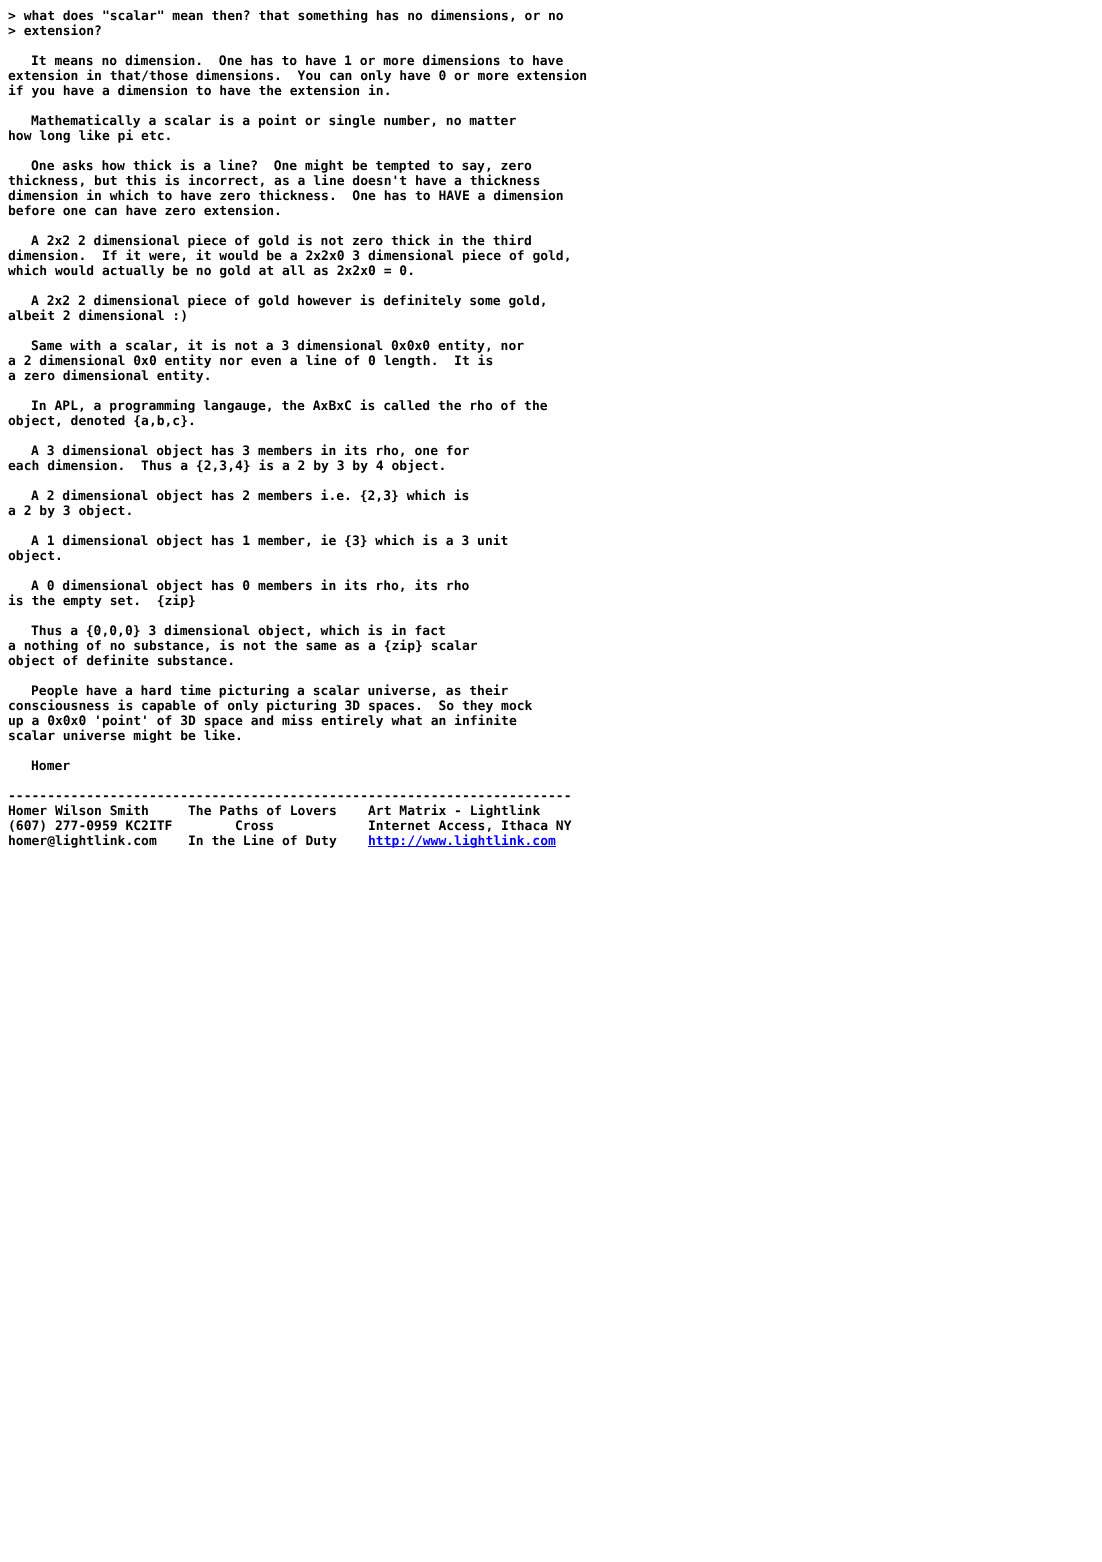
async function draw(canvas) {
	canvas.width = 1102;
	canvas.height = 1562;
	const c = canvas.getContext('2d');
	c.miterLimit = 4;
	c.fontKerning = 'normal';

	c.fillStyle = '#fff';
	c.fillRect(0, 0, 1102, 1562);
	c.font = 'bold 13px DejaVu Sans Mono';
	c.fillStyle = '#000';
	for (const [text, x, y] of [
		['> what does "scalar" mean then? that something has no dimensions, or no', 8, 20],
		['> extension?', 8, 35],
		['It means no dimension.  One has to have 1 or more dimensions to have', 31, 65],
		['extension in that/those dimensions.  You can only have 0 or more extension', 8, 80],
		['if you have a dimension to have the extension in.', 8, 95],
		['Mathematically a scalar is a point or single number, no matter', 31, 125],
		['how long like pi etc.', 8, 140],
		['One asks how thick is a line?  One might be tempted to say, zero', 31, 170],
		['thickness, but this is incorrect, as a line doesn\'t have a thickness', 8, 185],
		['dimension in which to have zero thickness.  One has to HAVE a dimension', 8, 200],
		['before one can have zero extension.', 8, 215],
		['A 2x2 2 dimensional piece of gold is not zero thick in the third', 31, 245],
		['dimension.  If it were, it would be a 2x2x0 3 dimensional piece of gold,', 8, 260],
		['which would actually be no gold at all as 2x2x0 = 0.', 8, 275],
		['A 2x2 2 dimensional piece of gold however is definitely some gold,', 31, 305],
		['albeit 2 dimensional :)', 8, 320],
		['Same with a scalar, it is not a 3 dimensional 0x0x0 entity, nor', 31, 350],
		['a 2 dimensional 0x0 entity nor even a line of 0 length.  It is', 8, 365],
		['a zero dimensional entity.', 8, 380],
		['In APL, a programming langauge, the AxBxC is called the rho of the', 31, 410],
		['object, denoted {a,b,c}.', 8, 425],
		['A 3 dimensional object has 3 members in its rho, one for', 31, 455],
		['each dimension.  Thus a {2,3,4} is a 2 by 3 by 4 object.', 8, 470],
		['A 2 dimensional object has 2 members i.e. {2,3} which is', 31, 500],
		['a 2 by 3 object.', 8, 515],
		['A 1 dimensional object has 1 member, ie {3} which is a 3 unit', 31, 545],
		['object.', 8, 560],
		['A 0 dimensional object has 0 members in its rho, its rho', 31, 590],
		['is the empty set.  {zip}', 8, 605],
		['Thus a {0,0,0} 3 dimensional object, which is in fact', 31, 635],
		['a nothing of no substance, is not the same as a {zip} scalar', 8, 650],
		['object of definite substance.', 8, 665],
		['People have a hard time picturing a scalar universe, as their', 31, 695],
		['consciousness is capable of only picturing 3D spaces.  So they mock', 8, 710],
		['up a 0x0x0 \'point\' of 3D space and miss entirely what an infinite', 8, 725],
		['scalar universe might be like.', 8, 740],
		['Homer', 31, 770],
		['------------------------------------------------------------------------', 8, 800],
		['Homer Wilson Smith     The Paths of Lovers    Art Matrix - Lightlink', 8, 815],
		['(607) 277-0959 KC2ITF        Cross            Internet Access, Ithaca NY', 8, 830],
		['homer@lightlink.com    In the Line of Duty', 8, 845],
	]) {
		c.fillText(text, x, y);
	}
	c.fillStyle = '#00f';
	c.fillRect(368, 846, 188, 1);
	c.fillText('http://www.lightlink.com', 368, 845);
}

draw(document.querySelector('canvas'));
